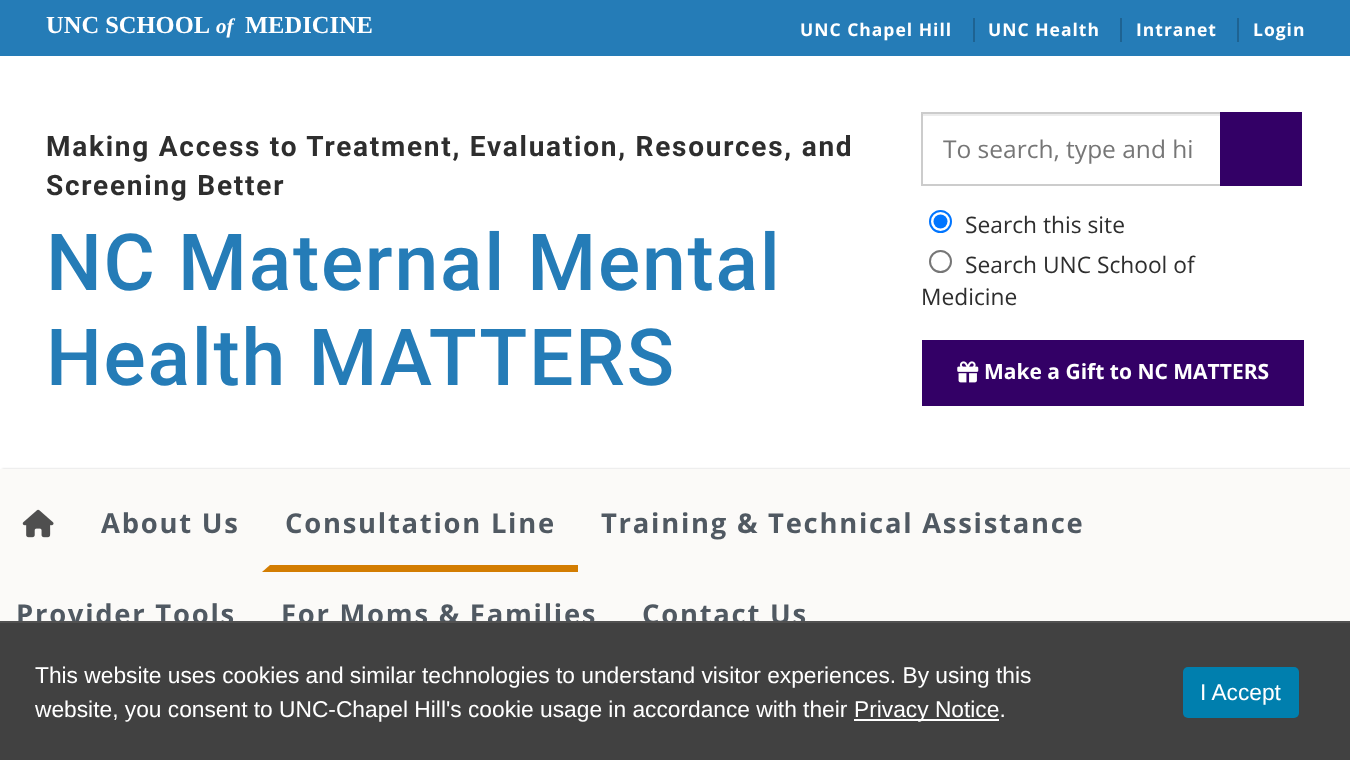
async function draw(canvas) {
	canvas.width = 1350;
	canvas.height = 760;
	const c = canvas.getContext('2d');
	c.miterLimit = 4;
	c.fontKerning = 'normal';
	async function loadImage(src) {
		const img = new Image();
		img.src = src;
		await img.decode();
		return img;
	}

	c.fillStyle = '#fff';
	c.fillRect(0, 0, 1350, 760);
	c.fillStyle = '#257cb7';
	c.fillRect(0, 0, 1350, 56);
	c.font = 'bold 24.5px Liberation Serif';
	c.fillStyle = '#fff';
	c.fillText('UNC SCHOOL', 46, 33);
	c.font = 'italic bold 21px Liberation Serif';
	c.fillText('of', 216, 33);
	c.font = 'bold 24.5px Liberation Serif';
	c.fillText('MEDICINE', 245, 33);
	c.letterSpacing = '1px';
	c.font = 'bold 17.5px Open Sans';
	c.fillText('UNC Chapel Hill', 800, 36);
	c.fillStyle = '#1e6392';
	c.fillRect(973, 18, 2, 24);
	c.fillStyle = '#fff';
	c.fillText('UNC Health', 988, 36);
	c.fillStyle = '#1e6392';
	c.fillRect(1120, 18, 2, 24);
	c.fillStyle = '#fff';
	c.fillText('Intranet', 1136, 36);
	c.fillStyle = '#1e6392';
	c.fillRect(1237, 18, 2, 24);
	c.fillStyle = '#fff';
	c.fillText('Login', 1253, 36);
	c.letterSpacing = '1.75px';
	c.font = 'bold 28px Roboto';
	c.fillStyle = '#2e2e2e';
	c.fillText('Making Access to Treatment, Evaluation, Resources, and', 46, 156);
	c.fillText('Screening Better', 46, 195);
	c.font = '500 78.75px Roboto';
	c.fillStyle = '#257cb7';
	c.fillText('NC Maternal Mental', 46, 290);
	c.fillText('Health MATTERS', 46, 385);
	c.fillStyle = '#ececec';
	c.fillRect(922, 114, 298, 2);
	c.strokeStyle = '#ccc';
	c.lineWidth = 2;
	c.strokeRect(922, 113, 299, 72);
	c.letterSpacing = '0px';
	c.font = '24.5px Open Sans';
	c.fillStyle = '#767676';
	c.fillText('To search, type and hi', 943, 158);
	c.fillStyle = '#306';
	c.fillRect(1220, 112, 82, 74);
	c.beginPath();
	c.arc(940.5, 221.5, 10.5, 0, 2 * Math.PI);
	c.strokeStyle = '#0075ff';
	c.stroke();
	c.fillStyle = '#0075ff';
	c.beginPath();
	c.arc(940.5, 221.5, 7, 0, 2 * Math.PI);
	c.fill();
	c.font = '22.75px Open Sans';
	c.fillStyle = '#2e2e2e';
	c.fillText('Search this site', 965, 233);
	c.beginPath();
	c.arc(940.5, 261.5, 10.5, 0, 2 * Math.PI);
	c.strokeStyle = '#767676';
	c.stroke();
	c.fillText('Search UNC School of', 965, 273);
	c.fillText('Medicine', 921, 305);
	c.fillStyle = '#306';
	c.fillRect(922, 340, 382, 66);
	c.drawImage(await loadImage('img1.png'), 957, 361, 22, 22);
	c.font = 'bold 21px Open Sans';
	c.fillStyle = '#fff';
	c.fillText('Make a Gift to NC MATTERS', 984, 379);
	c.fillStyle = '#bdbdbdbf';
	c.filter = 'blur(1px)';
	c.beginPath();
	c.rect(2, 469, 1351, 203);
	c.fill();
	c.filter = 'none';
	c.fillStyle = '#fbfaf8';
	c.fillRect(0, 469, 1350, 152);
	c.drawImage(await loadImage('img2.png'), 22, 509, 32, 29);
	c.letterSpacing = '1.75px';
	c.font = 'bold 27.4px Open Sans';
	c.fillStyle = '#505962';
	c.fillText('About Us', 101, 533);
	c.fillStyle = '#d37d02';
	c.beginPath();
	c.moveTo(578, 572);
	c.lineTo(262, 572);
	c.lineTo(270, 565);
	c.lineTo(578, 565);
	c.closePath();
	c.fill();
	c.fillStyle = '#505962';
	for (const [text, x, y] of [
		['Consultation Line', 285, 533],
		['Training & Technical Assistance', 601, 533],
		['Provider Tools', 16, 624],
		['For Moms & Families', 281, 624],
		['Contact Us', 642, 624],
	]) {
		c.fillText(text, x, y);
	}
	c.fillStyle = '#414141';
	c.fillRect(0, 623, 1350, 137);
	c.fillStyle = '#515151';
	c.fillRect(0, 621, 1350, 2);
	c.letterSpacing = '0px';
	c.font = '22.75px Liberation Sans';
	c.fillStyle = '#fff';
	c.fillText('This website uses cookies and similar technologies to understand visitor experiences. By using this', 35, 683);
	c.fillText('website, you consent to UNC-Chapel Hill\'s cookie usage in accordance with their', 35, 717);
	c.fillRect(854, 719, 145, 2);
	c.fillText('Privacy Notice.', 854, 717);
	c.fillStyle = '#007fae';
	c.beginPath();
	c.roundRect(1183, 667, 116, 51, 5);
	c.fill();
	c.fillStyle = '#fff';
	c.fillText('I Accept', 1200, 700);
}

draw(document.querySelector('canvas'));
